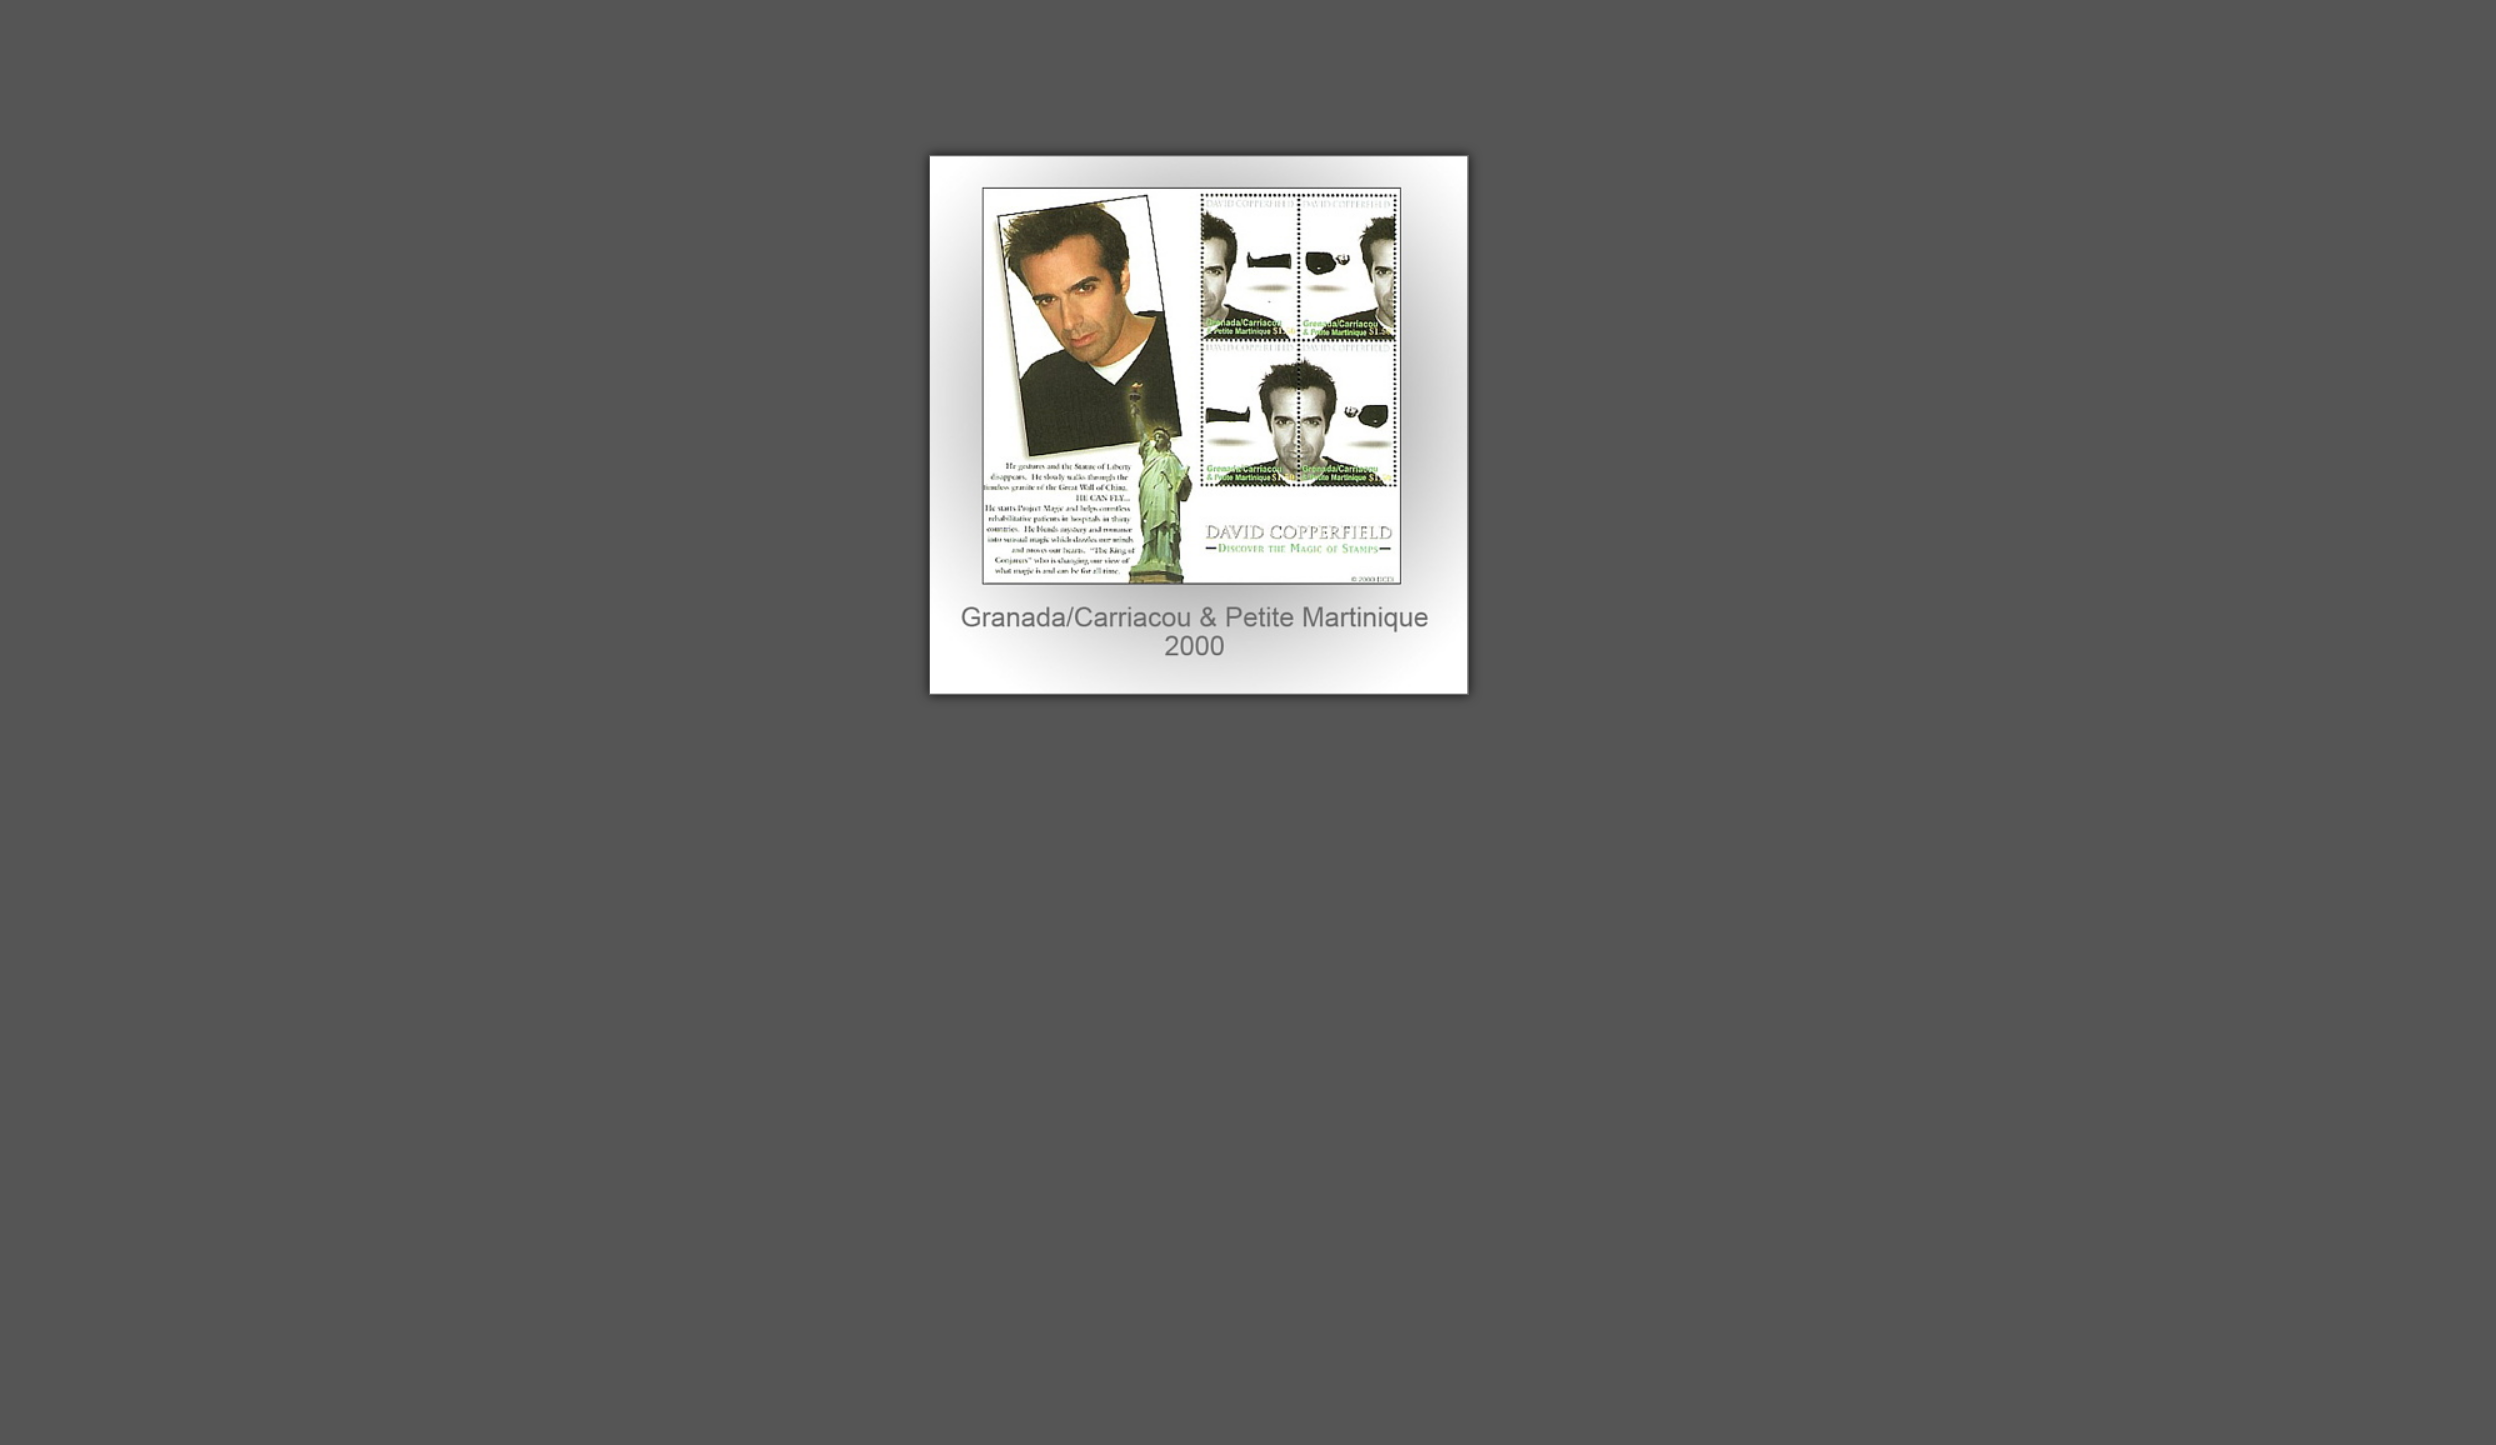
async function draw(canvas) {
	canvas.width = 2496;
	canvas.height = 1445;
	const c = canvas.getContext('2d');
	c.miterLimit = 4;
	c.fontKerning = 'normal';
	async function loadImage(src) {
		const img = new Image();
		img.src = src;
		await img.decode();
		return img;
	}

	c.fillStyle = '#555';
	c.fillRect(0, 0, 2496, 1445);
	c.fillStyle = '#111';
	c.filter = 'blur(6px)';
	c.beginPath();
	c.rect(929, 155, 540, 540);
	c.fill();
	c.filter = 'none';
	c.strokeStyle = '#666';
	c.strokeRect(929.5, 155.5, 539, 539);
	c.drawImage(await loadImage('img1.png'), 930, 156, 538, 538);
}

draw(document.querySelector('canvas'));
